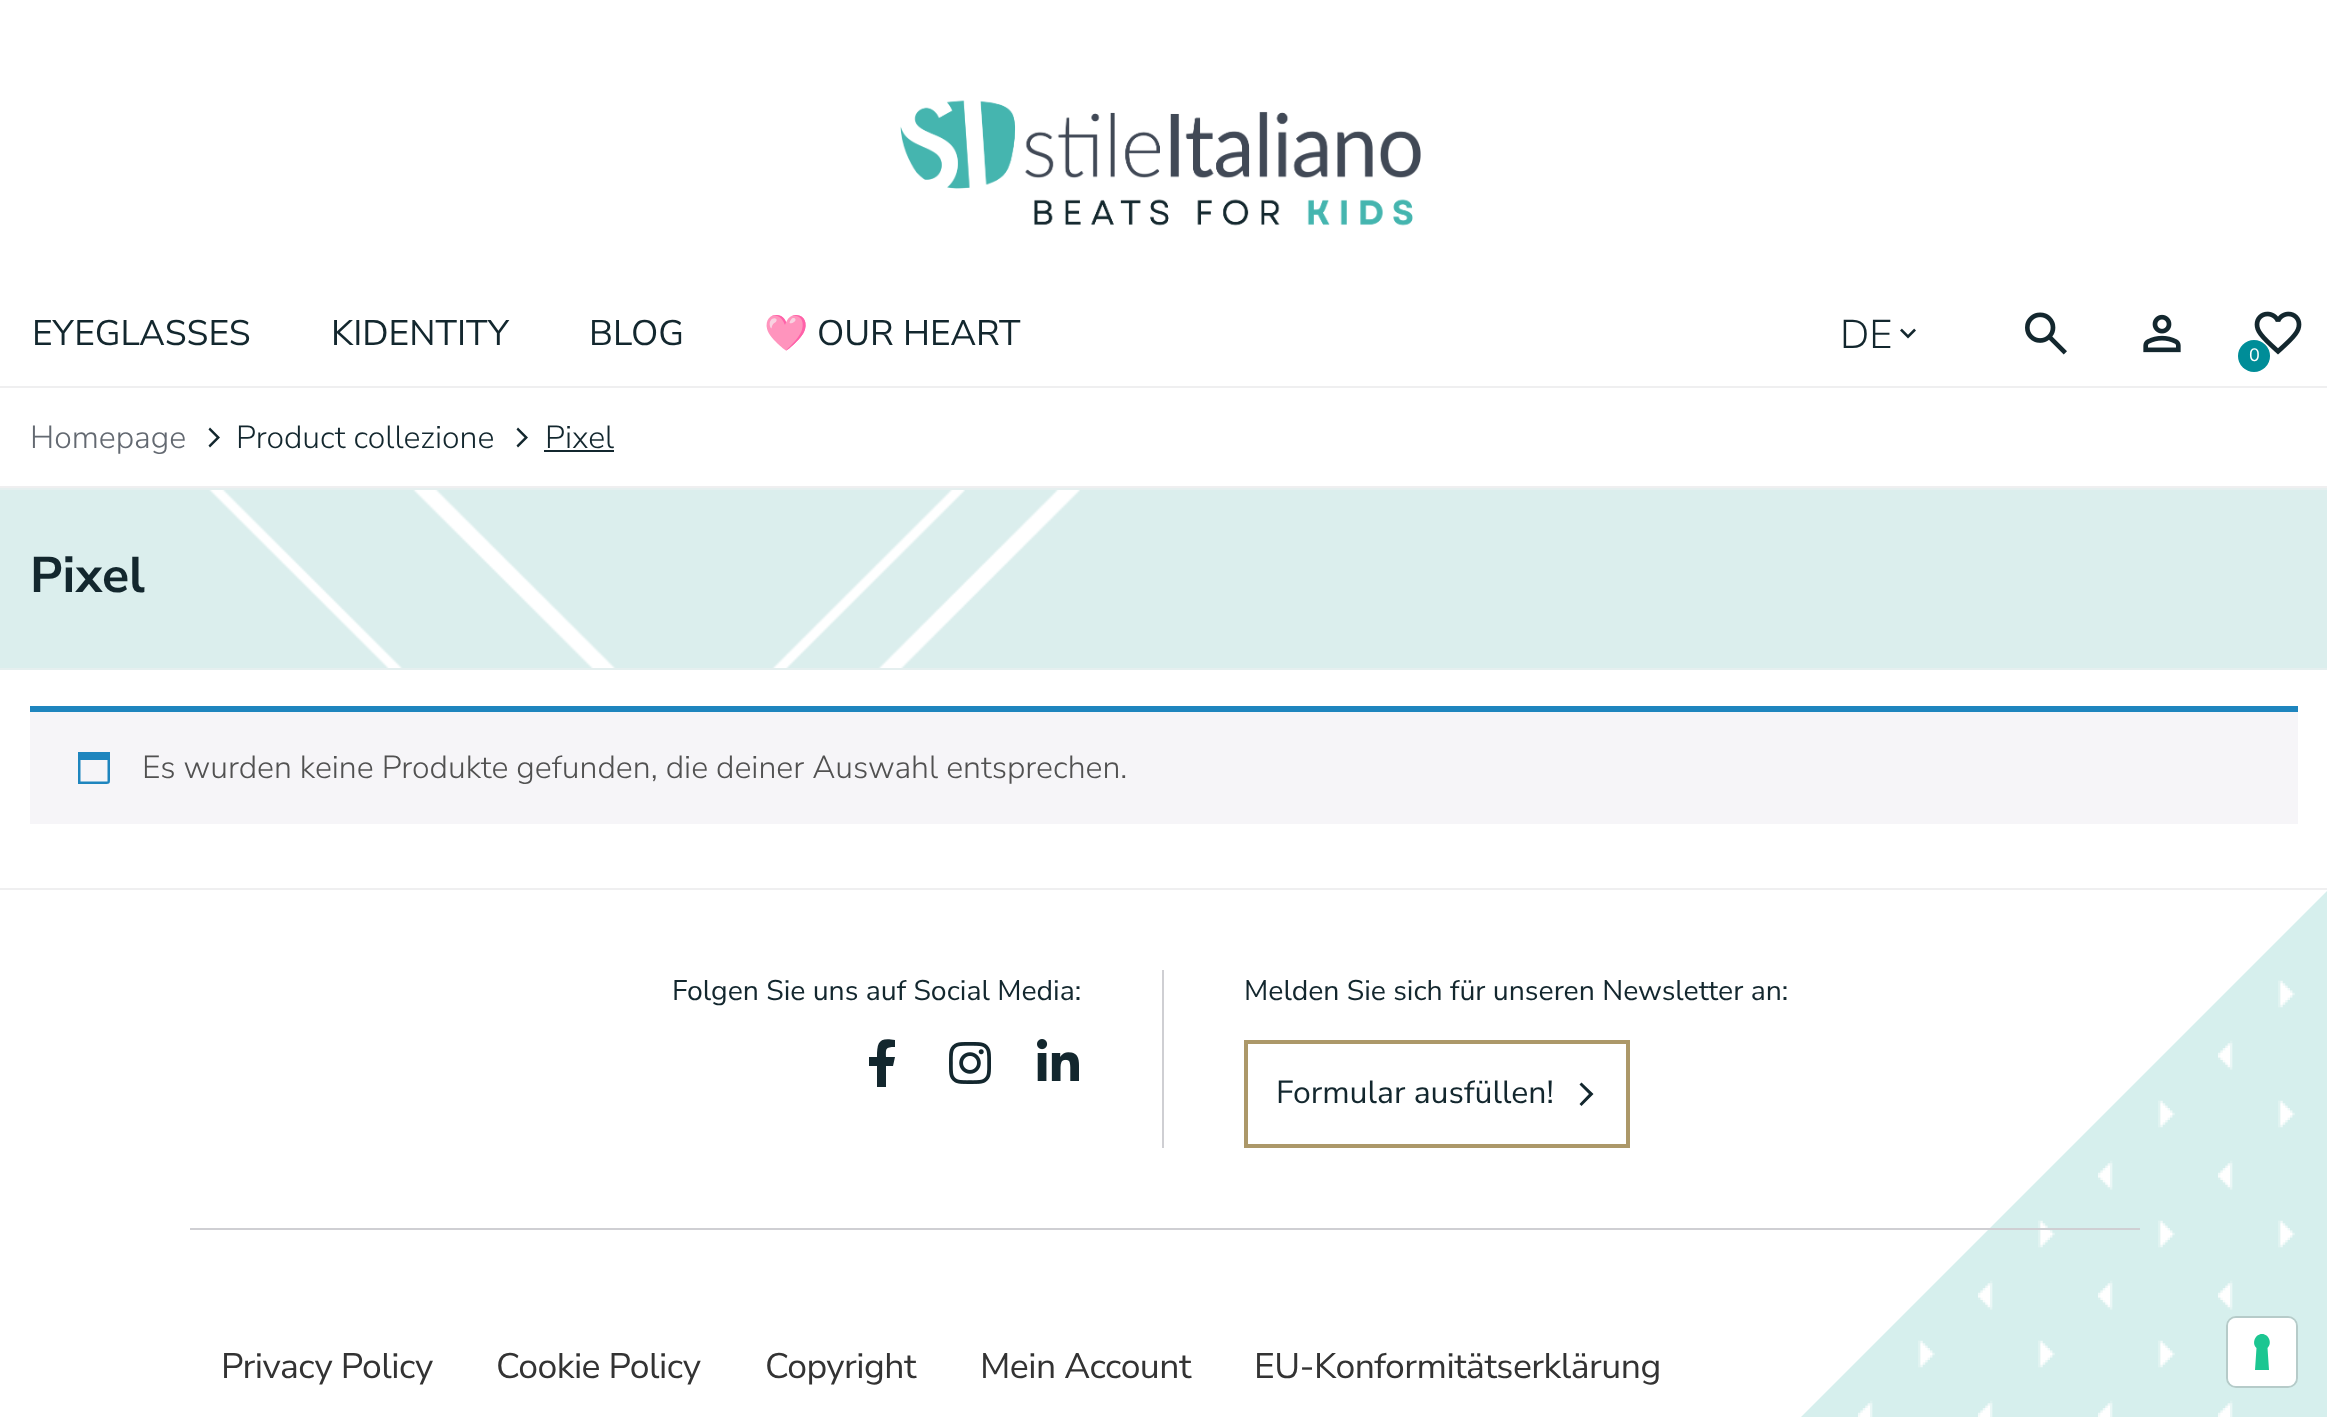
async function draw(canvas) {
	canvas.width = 2327;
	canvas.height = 1417;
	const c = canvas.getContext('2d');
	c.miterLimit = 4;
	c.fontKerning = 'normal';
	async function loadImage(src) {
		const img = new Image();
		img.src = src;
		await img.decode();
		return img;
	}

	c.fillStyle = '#fff';
	c.fillRect(0, 0, 2327, 1417);
	c.fillStyle = '#efeff0';
	c.fillRect(0, 386, 2327, 2);
	c.drawImage(await loadImage('img1.png'), 900, 100, 521, 126);
	c.font = '35.5px Nunito Sans';
	c.fillStyle = '#13272e';
	for (const [text, x, y] of [
		['EYEGLASSES', 32, 345],
		['KIDENTITY', 331, 345],
		['BLOG', 589, 345],
	]) {
		c.fillText(text, x, y);
	}
	c.font = '35.5px Noto Color Emoji';
	c.fillText('🩷', 764, 345);
	c.font = '35.5px Nunito Sans';
	c.fillText('OUR HEART', 817, 345);
	c.font = '300 40px Nunito Sans';
	c.fillText('DE', 1840, 348);
	c.drawImage(await loadImage('img2.png'), 1900, 328, 16, 11);
	c.drawImage(await loadImage('img3.png'), 2025, 312, 42, 43);
	c.drawImage(await loadImage('img4.png'), 2143, 314, 38, 39);
	c.drawImage(await loadImage('img5.png'), 2254, 311, 48, 44);
	c.fillStyle = '#008d98';
	c.beginPath();
	c.arc(2254, 356, 16, 0, 2 * Math.PI);
	c.fill();
	c.font = '18px Nunito Sans';
	c.fillStyle = '#fff';
	c.fillText('0', 2249, 361);
	c.font = '300 32px Nunito Sans';
	c.fillStyle = '#636971';
	c.fillText('Homepage', 30, 448);
	c.fillStyle = '#13272e';
	c.beginPath();
	c.moveTo(210, 447.5);
	c.lineTo(208.5, 445.5);
	c.lineTo(216.5, 437.5);
	c.lineTo(208.5, 429.5);
	c.lineTo(210, 427.5);
	c.lineTo(220, 437.5);
	c.closePath();
	c.fill();
	c.fillText('Product collezione', 236, 448);
	c.beginPath();
	c.moveTo(518, 447.5);
	c.lineTo(516.5, 445.5);
	c.lineTo(524.5, 437.5);
	c.lineTo(516.5, 429.5);
	c.lineTo(518, 427.5);
	c.lineTo(528, 437.5);
	c.closePath();
	c.fill();
	c.fillText('Pixel', 545, 448);
	for (const [x, y, w, h, color] of [
		[544, 450, 70, 2, '#13272e'],
		[0, 486, 2327, 2, '#efeff0'],
		[0, 490, 2327, 178, '#dbeeed'],
	]) {
		c.fillStyle = color;
		c.fillRect(x, y, w, h);
	}
	c.drawImage(await loadImage('img6.png'), 209, 490, 871, 178);
	c.fillStyle = '#e5efef';
	c.fillRect(0, 488, 2327, 2);
	c.fillRect(0, 668, 2327, 2);
	c.font = 'bold 50px Nunito Sans';
	c.fillStyle = '#13272e';
	c.fillText('Pixel', 30, 592);
	c.fillStyle = '#f6f5f8';
	c.fillRect(30, 712, 2268, 112);
	c.fillStyle = '#1e85be';
	c.fillRect(30, 706, 2268, 6);
	c.beginPath();
	c.moveTo(107.5, 760);
	c.lineTo(80.5, 760);
	c.lineTo(80.5, 781.5);
	c.lineTo(107.5, 781.5);
	c.closePath();
	c.moveTo(110, 752);
	c.lineTo(110, 776.5);
	c.bezierCurveTo(110, 784.5, 110.5, 784, 102.5, 784);
	c.lineTo(78, 784);
	c.lineTo(78, 752);
	c.closePath();
	c.fill();
	c.font = '300 32px Nunito Sans';
	c.fillStyle = '#515151';
	c.fillText('Es wurden keine Produkte gefunden, die deiner Auswahl entsprechen.', 142, 778);
	c.drawImage(await loadImage('img7.png'), 1801, 891, 526, 526);
	c.fillStyle = '#efeff0';
	c.fillRect(0, 888, 2327, 2);
	c.fillStyle = '#cfcfd3';
	c.fillRect(1162, 970, 2, 178);
	c.font = '28.4px Nunito Sans';
	c.fillStyle = '#13272e';
	c.fillText('Folgen Sie uns auf Social Media:', 672, 1000);
	c.beginPath();
	c.moveTo(893, 1066);
	c.lineTo(895, 1057);
	c.lineTo(886, 1057);
	c.bezierCurveTo(886, 1049, 885, 1047, 895, 1047);
	c.lineTo(895, 1040);
	c.bezierCurveTo(879, 1037, 877, 1042, 877, 1057);
	c.lineTo(869, 1057);
	c.lineTo(869, 1066);
	c.lineTo(877, 1066);
	c.lineTo(877, 1087);
	c.lineTo(886, 1087);
	c.lineTo(886, 1066);
	c.closePath();
	c.fill();
	c.drawImage(await loadImage('img8.png'), 949, 1042, 42, 42);
	c.drawImage(await loadImage('img9.png'), 1037, 1039, 42, 42);
	c.fillText('Melden Sie sich für unseren Newsletter an:', 1244, 1000);
	c.strokeStyle = '#ac9869';
	c.lineWidth = 4;
	c.strokeRect(1246, 1042, 382, 104);
	c.font = '32px Nunito Sans';
	c.fillText('Formular ausfüllen!', 1276, 1103);
	c.beginPath();
	c.moveTo(1581.5, 1106);
	c.lineTo(1579.5, 1104);
	c.lineTo(1589, 1094);
	c.lineTo(1579.5, 1084.5);
	c.lineTo(1581.5, 1082.5);
	c.lineTo(1593.5, 1094);
	c.closePath();
	c.fill();
	c.fillStyle = '#cfcfd3';
	c.fillRect(190, 1228, 1950, 2);
	c.letterSpacing = '-0.5px';
	c.font = '35.5px Nunito Sans';
	c.fillStyle = '#333';
	for (const [text, x, y] of [
		['Privacy Policy', 221, 1378],
		['Cookie Policy', 496, 1378],
		['Copyright', 765, 1378],
		['Mein Account', 980, 1378],
		['EU-Konformitätserklärung', 1254, 1378],
	]) {
		c.fillText(text, x, y);
	}
	c.beginPath();
	c.roundRect(2227, 1317, 70, 70, 9);
	c.strokeStyle = '#b6cbc9';
	c.lineWidth = 2;
	c.stroke();
	c.fillStyle = '#fff';
	c.beginPath();
	c.roundRect(2228, 1318, 68, 68, 8);
	c.fill();
	c.fillStyle = '#1cc691';
	c.beginPath();
	c.moveTo(2262, 1334);
	c.bezierCurveTo(2269, 1334, 2272.5, 1343.5, 2267.5, 1348);
	c.lineTo(2269, 1370);
	c.lineTo(2255, 1370);
	c.lineTo(2256.5, 1348);
	c.bezierCurveTo(2251.5, 1343.5, 2255, 1334, 2262, 1334);
	c.closePath();
	c.fill('evenodd');
}

draw(document.querySelector('canvas'));
